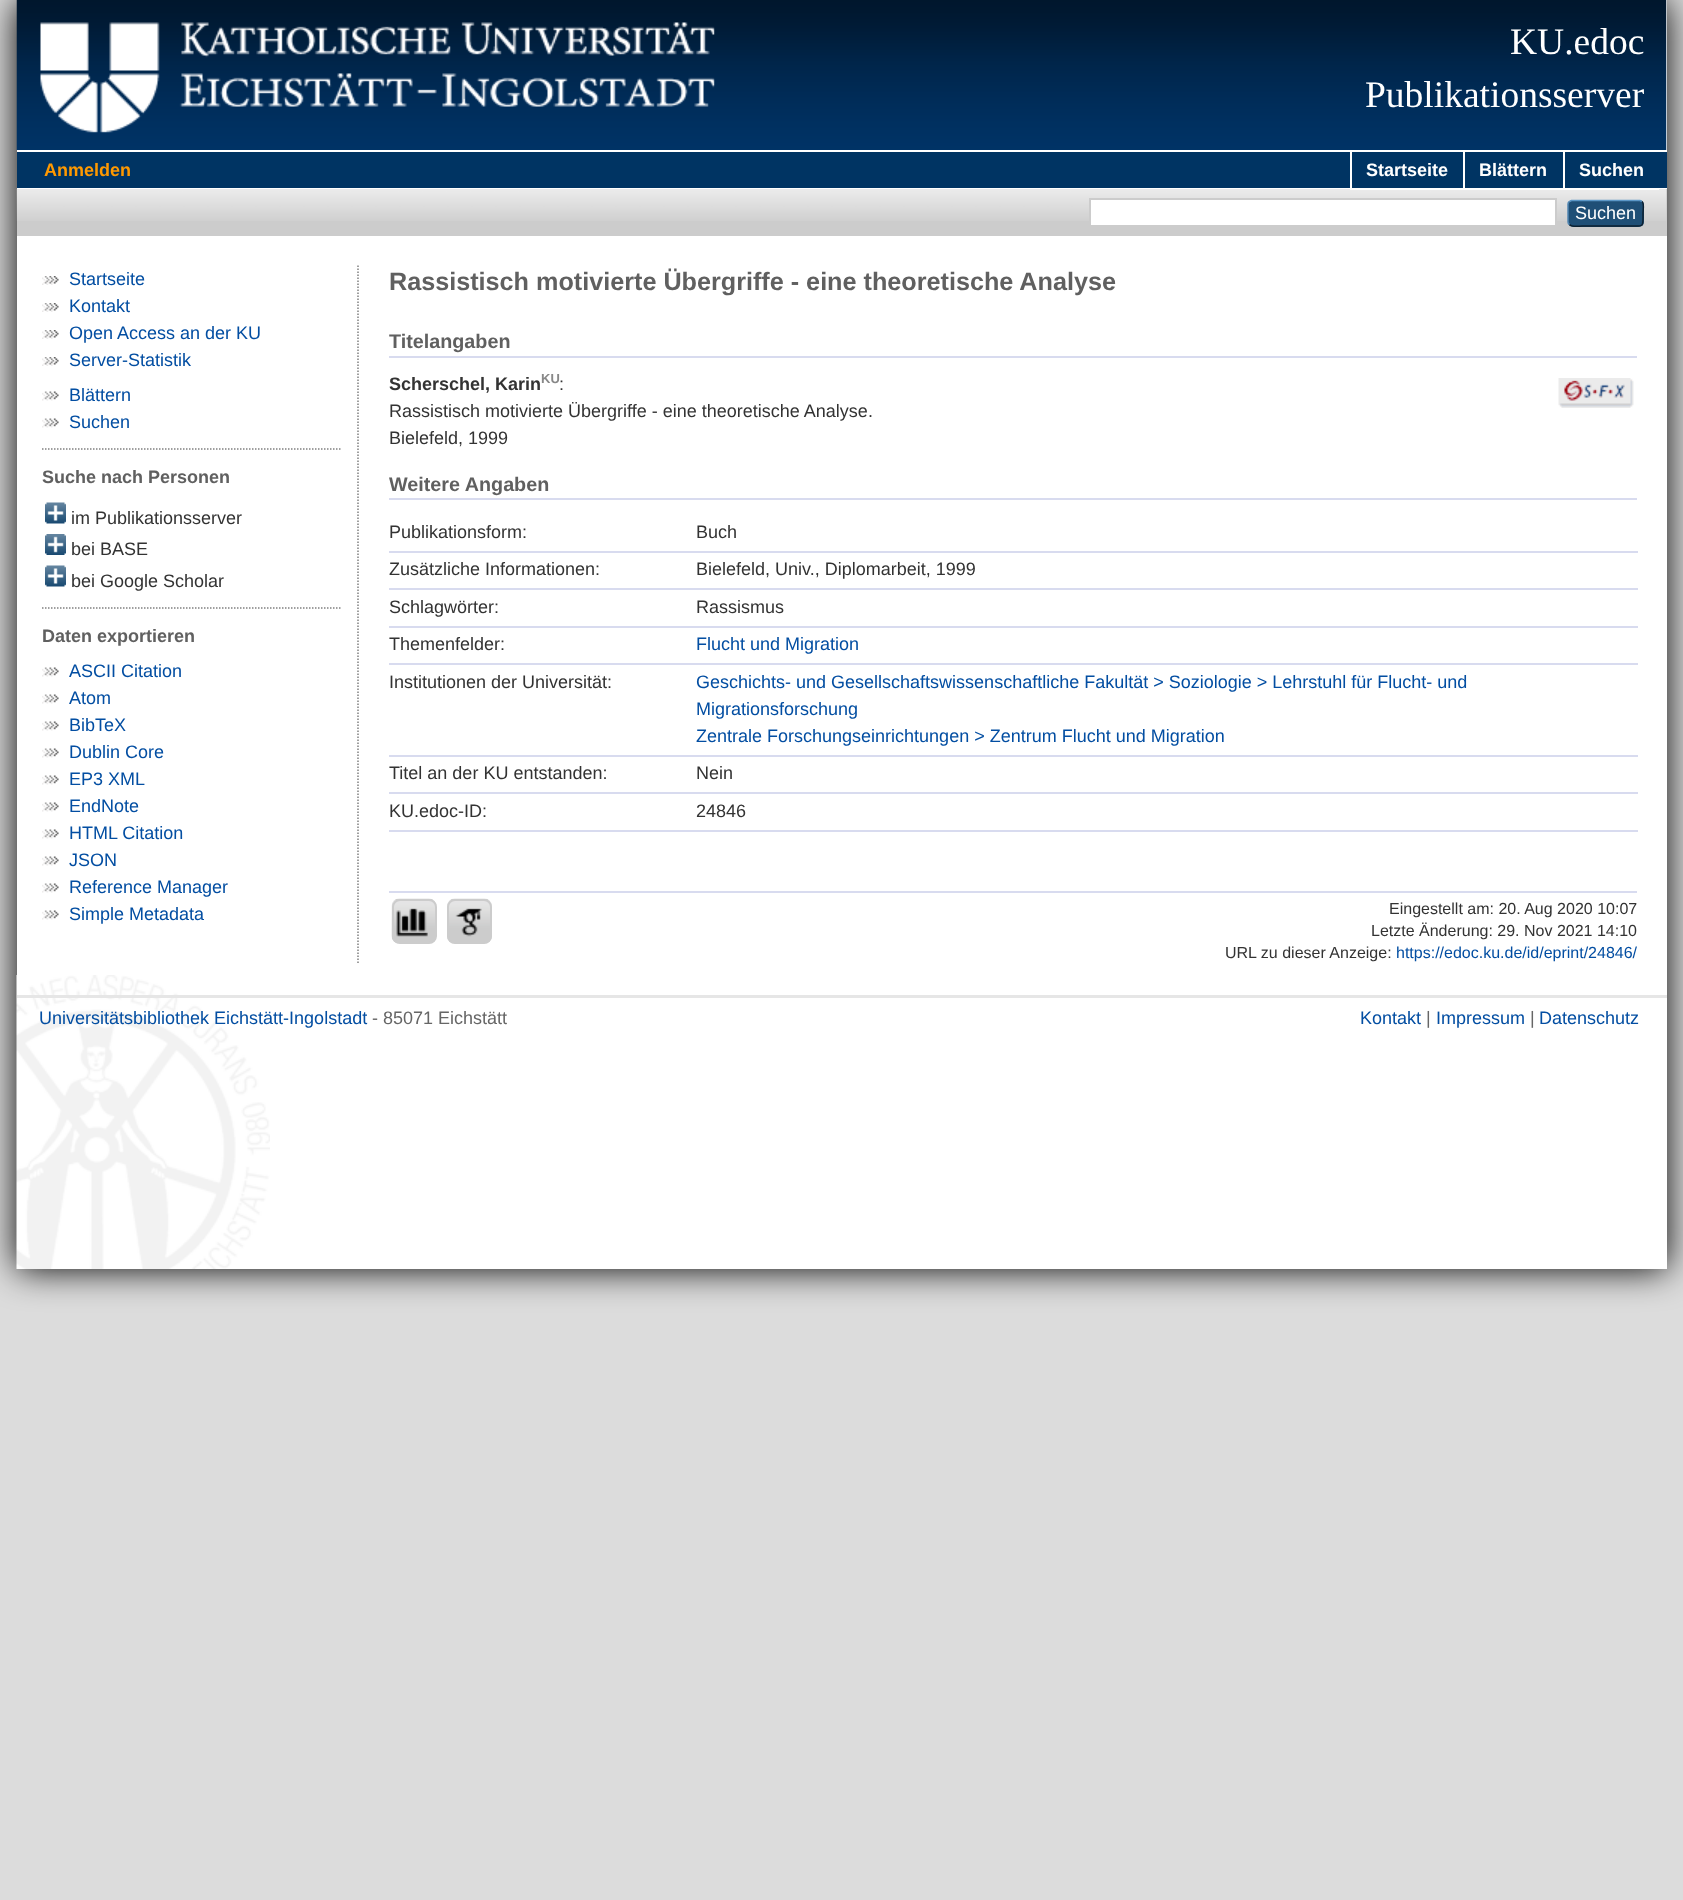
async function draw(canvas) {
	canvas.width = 1683;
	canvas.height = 1900;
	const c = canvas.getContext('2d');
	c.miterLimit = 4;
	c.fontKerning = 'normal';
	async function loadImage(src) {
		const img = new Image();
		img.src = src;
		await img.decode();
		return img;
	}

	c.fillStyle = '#dcdcdc';
	c.fillRect(0, 0, 1683, 1900);
	c.fillStyle = '#000';
	c.filter = 'blur(18px)';
	c.beginPath();
	c.rect(17, 0, 1650, 1269);
	c.fill();
	c.filter = 'none';
	c.fillStyle = '#fff';
	c.fillRect(17, 0, 1650, 1269);
	c.drawImage(await loadImage('img1.png'), 16, 975, 254, 294);
	c.drawImage(await loadImage('img2.png'), 16, 0, 1651, 150);
	c.drawImage(await loadImage('img3.png'), 40, 22, 675, 111);
	c.font = '37.5px Liberation Serif';
	c.fillText('KU.edoc', 1510, 54);
	c.fillText('Publikationsserver', 1365, 107);
	c.fillStyle = '#003463';
	c.fillRect(17, 152, 1650, 36);
	c.font = 'bold 18px Liberation Sans';
	c.fillStyle = '#f90';
	c.fillText('Anmelden', 44, 176);
	c.fillStyle = '#ccc';
	c.fillRect(17, 189, 1650, 47);
	c.drawImage(await loadImage('img4.png'), 16, 189, 1651, 32);
	c.fillStyle = '#fff';
	c.fillRect(1350, 189, 309, 1);
	c.fillRect(1350, 152, 2, 36);
	c.fillText('Startseite', 1366, 176);
	c.fillRect(1463, 152, 2, 36);
	c.fillText('Blättern', 1479, 176);
	c.fillRect(1563, 152, 2, 36);
	c.fillText('Suchen', 1579, 176);
	c.beginPath();
	c.rect(1090, 199, 466, 27);
	c.fill();
	c.strokeStyle = '#ccc';
	c.lineWidth = 2;
	c.stroke();
	c.fillStyle = '#1f4f76';
	c.beginPath();
	c.roundRect(1568, 200, 76, 27, 5);
	c.fill();
	c.beginPath();
	c.moveTo(1569.5, 201.5);
	c.lineTo(1571.5, 200.5);
	c.lineTo(1640, 200.5);
	c.lineTo(1642, 201.5);
	c.strokeStyle = '#5b97c7';
	c.lineWidth = 1.5;
	c.stroke();
	c.beginPath();
	c.moveTo(1642, 201.5);
	c.bezierCurveTo(1644.5, 203.5, 1643, 210, 1643, 213);
	c.bezierCurveTo(1643, 228, 1644.5, 226, 1628, 226);
	c.lineTo(1583, 226);
	c.bezierCurveTo(1582, 226, 1572, 227.5, 1569.5, 224.5);
	c.strokeStyle = '#0d2131';
	c.stroke();
	c.beginPath();
	c.moveTo(1569.5, 224.5);
	c.bezierCurveTo(1568.5, 224, 1568, 223, 1568, 222);
	c.lineTo(1568, 204);
	c.bezierCurveTo(1568, 203, 1568.5, 202, 1569.5, 201.5);
	c.strokeStyle = '#5287b3';
	c.stroke();
	c.font = '18px Liberation Sans';
	c.fillStyle = '#fff';
	c.fillText('Suchen', 1575, 219);
	c.drawImage(await loadImage('img5.png'), 42, 276, 17, 9);
	c.fillStyle = '#034ea2';
	c.fillText('Startseite', 69, 285);
	c.drawImage(await loadImage('img5.png'), 42, 303, 17, 9);
	c.fillText('Kontakt', 69, 312);
	c.drawImage(await loadImage('img5.png'), 42, 330, 17, 9);
	c.fillText('Open Access an der KU', 69, 339);
	c.drawImage(await loadImage('img5.png'), 42, 357, 17, 9);
	c.fillText('Server-Statistik', 69, 366);
	c.drawImage(await loadImage('img6.png'), 42, 391, 17, 10);
	c.fillText('Blättern', 69, 401);
	c.drawImage(await loadImage('img6.png'), 42, 418, 17, 10);
	c.fillText('Suchen', 69, 428);
	c.beginPath();
	c.moveTo(42, 449);
	c.lineTo(342, 449);
	c.strokeStyle = '#808080';
	c.setLineDash([1.5, 1.5]);
	c.stroke();
	c.font = 'bold 18px Liberation Sans';
	c.fillStyle = '#606060';
	c.fillText('Suche nach Personen', 42, 483);
	c.drawImage(await loadImage('img7.png'), 45, 502, 21, 22);
	c.font = '18px Liberation Sans';
	c.fillStyle = '#333';
	c.fillText('im Publikationsserver', 71, 524);
	c.drawImage(await loadImage('img8.png'), 45, 534, 21, 21);
	c.fillText('bei BASE', 71, 555);
	c.drawImage(await loadImage('img7.png'), 45, 565, 21, 22);
	c.fillText('bei Google Scholar', 71, 587);
	c.beginPath();
	c.moveTo(42, 608);
	c.lineTo(342, 608);
	c.stroke();
	c.font = 'bold 18px Liberation Sans';
	c.fillStyle = '#606060';
	c.fillText('Daten exportieren', 42, 642);
	c.drawImage(await loadImage('img6.png'), 42, 667, 17, 10);
	c.font = '18px Liberation Sans';
	c.fillStyle = '#034ea2';
	c.fillText('ASCII Citation', 69, 677);
	c.drawImage(await loadImage('img6.png'), 42, 694, 17, 10);
	c.fillText('Atom', 69, 704);
	c.drawImage(await loadImage('img6.png'), 42, 721, 17, 10);
	c.fillText('BibTeX', 69, 731);
	c.drawImage(await loadImage('img6.png'), 42, 748, 17, 10);
	c.fillText('Dublin Core', 69, 758);
	c.drawImage(await loadImage('img6.png'), 42, 775, 17, 10);
	c.fillText('EP3 XML', 69, 785);
	c.drawImage(await loadImage('img6.png'), 42, 802, 17, 10);
	c.fillText('EndNote', 69, 812);
	c.drawImage(await loadImage('img6.png'), 42, 829, 17, 10);
	c.fillText('HTML Citation', 69, 839);
	c.drawImage(await loadImage('img6.png'), 42, 856, 17, 10);
	c.fillText('JSON', 69, 866);
	c.drawImage(await loadImage('img6.png'), 42, 883, 17, 10);
	c.fillText('Reference Manager', 69, 893);
	c.drawImage(await loadImage('img6.png'), 42, 910, 17, 10);
	c.fillText('Simple Metadata', 69, 920);
	c.beginPath();
	c.moveTo(358, 265.5);
	c.lineTo(358, 964.5);
	c.stroke();
	c.font = 'bold 25.2px Liberation Sans';
	c.fillStyle = '#606060';
	c.fillText('Rassistisch motivierte Übergriffe - eine theoretische Analyse', 389, 290);
	c.fillStyle = '#d8dbef';
	c.fillRect(389, 356, 1248, 2);
	c.font = 'bold 19.75px Liberation Sans';
	c.fillStyle = '#606060';
	c.fillText('Titelangaben', 389, 348);
	c.font = 'bold 18px Liberation Sans';
	c.fillStyle = '#333';
	c.fillText('Scherschel, Karin', 389, 390);
	c.font = 'bold 13px Liberation Sans';
	c.fillStyle = '#888';
	c.fillText('KU', 541, 383);
	c.font = '18px Liberation Sans';
	c.fillStyle = '#333';
	for (const [text, x, y] of [
		[':', 559, 390],
		['Rassistisch motivierte Übergriffe - eine theoretische Analyse.', 389, 417],
		['Bielefeld, 1999', 389, 444],
	]) {
		c.fillText(text, x, y);
	}
	c.drawImage(await loadImage('img9.png'), 1558, 378, 76, 30);
	c.fillStyle = '#d8dbef';
	c.fillRect(389, 498, 1248, 2);
	c.font = 'bold 19.75px Liberation Sans';
	c.fillStyle = '#606060';
	c.fillText('Weitere Angaben', 389, 491);
	c.font = '18px Liberation Sans';
	c.fillStyle = '#333';
	c.fillText('Publikationsform:', 389, 538);
	c.fillStyle = '#d8dbef';
	c.fillRect(389, 551, 1249, 2);
	c.fillStyle = '#333';
	c.fillText('Buch', 696, 538);
	c.fillText('Zusätzliche Informationen:', 389, 575);
	c.fillStyle = '#d8dbef';
	c.fillRect(389, 588, 1249, 2);
	c.fillStyle = '#333';
	c.fillText('Bielefeld, Univ., Diplomarbeit, 1999', 696, 575);
	c.fillText('Schlagwörter:', 389, 613);
	c.fillStyle = '#d8dbef';
	c.fillRect(389, 626, 1249, 2);
	c.fillStyle = '#333';
	c.fillText('Rassismus', 696, 613);
	c.fillText('Themenfelder:', 389, 650);
	c.fillStyle = '#d8dbef';
	c.fillRect(389, 663, 1249, 2);
	c.fillStyle = '#034ea2';
	c.fillText('Flucht und Migration', 696, 650);
	c.fillStyle = '#333';
	c.fillText('Institutionen der Universität:', 389, 688);
	c.fillStyle = '#d8dbef';
	c.fillRect(389, 755, 1249, 2);
	c.fillStyle = '#034ea2';
	for (const [text, x, y] of [
		['Geschichts- und Gesellschaftswissenschaftliche Fakultät > Soziologie > Lehrstuhl für Flucht- und', 696, 688],
		['Migrationsforschung', 696, 715],
		['Zentrale Forschungseinrichtungen > Zentrum Flucht und Migration', 696, 742],
	]) {
		c.fillText(text, x, y);
	}
	c.fillStyle = '#333';
	c.fillText('Titel an der KU entstanden:', 389, 779);
	c.fillStyle = '#d8dbef';
	c.fillRect(389, 792, 1249, 2);
	c.fillStyle = '#333';
	c.fillText('Nein', 696, 779);
	c.fillText('KU.edoc-ID:', 389, 817);
	c.fillStyle = '#d8dbef';
	c.fillRect(389, 830, 1249, 2);
	c.fillStyle = '#333';
	c.fillText('24846', 696, 817);
	c.fillStyle = '#d8dbef';
	c.fillRect(389, 891, 1248, 2);
	c.drawImage(await loadImage('img10.png'), 391, 898, 46, 46);
	c.beginPath();
	c.roundRect(393, 900, 43, 43, 7);
	c.strokeStyle = '#ccc';
	c.lineWidth = 2;
	c.setLineDash([]);
	c.stroke();
	c.drawImage(await loadImage('img11.png'), 396, 908, 32, 29);
	c.drawImage(await loadImage('img12.png'), 447, 898, 45, 46);
	c.beginPath();
	c.roundRect(448, 900, 43, 43, 7);
	c.stroke();
	c.drawImage(await loadImage('img13.png'), 455, 908, 27, 29);
	c.font = '16px Liberation Sans';
	c.fillStyle = '#333';
	for (const [text, x, y] of [
		['Eingestellt am: 20. Aug 2020 10:07', 1389, 914],
		['Letzte Änderung: 29. Nov 2021 14:10', 1371, 936],
		['URL zu dieser Anzeige:', 1225, 958],
	]) {
		c.fillText(text, x, y);
	}
	c.fillStyle = '#034ea2';
	c.fillText('https://edoc.ku.de/id/eprint/24846/', 1396, 958);
	c.fillStyle = '#e6e6e6';
	c.fillRect(17, 995, 1650, 3);
	c.font = '18px Liberation Sans';
	c.fillStyle = '#034ea2';
	c.fillText('Universitätsbibliothek Eichstätt-Ingolstadt', 39, 1024);
	c.fillStyle = '#666';
	c.fillText('- 85071 Eichstätt', 372, 1024);
	c.fillStyle = '#034ea2';
	c.fillText('Kontakt', 1360, 1024);
	c.fillStyle = '#666';
	c.fillText('|', 1426, 1024);
	c.fillStyle = '#034ea2';
	c.fillText('Impressum', 1436, 1024);
	c.fillStyle = '#666';
	c.fillText('|', 1530, 1024);
	c.fillStyle = '#034ea2';
	c.fillText('Datenschutz', 1539, 1024);
}

draw(document.querySelector('canvas'));
